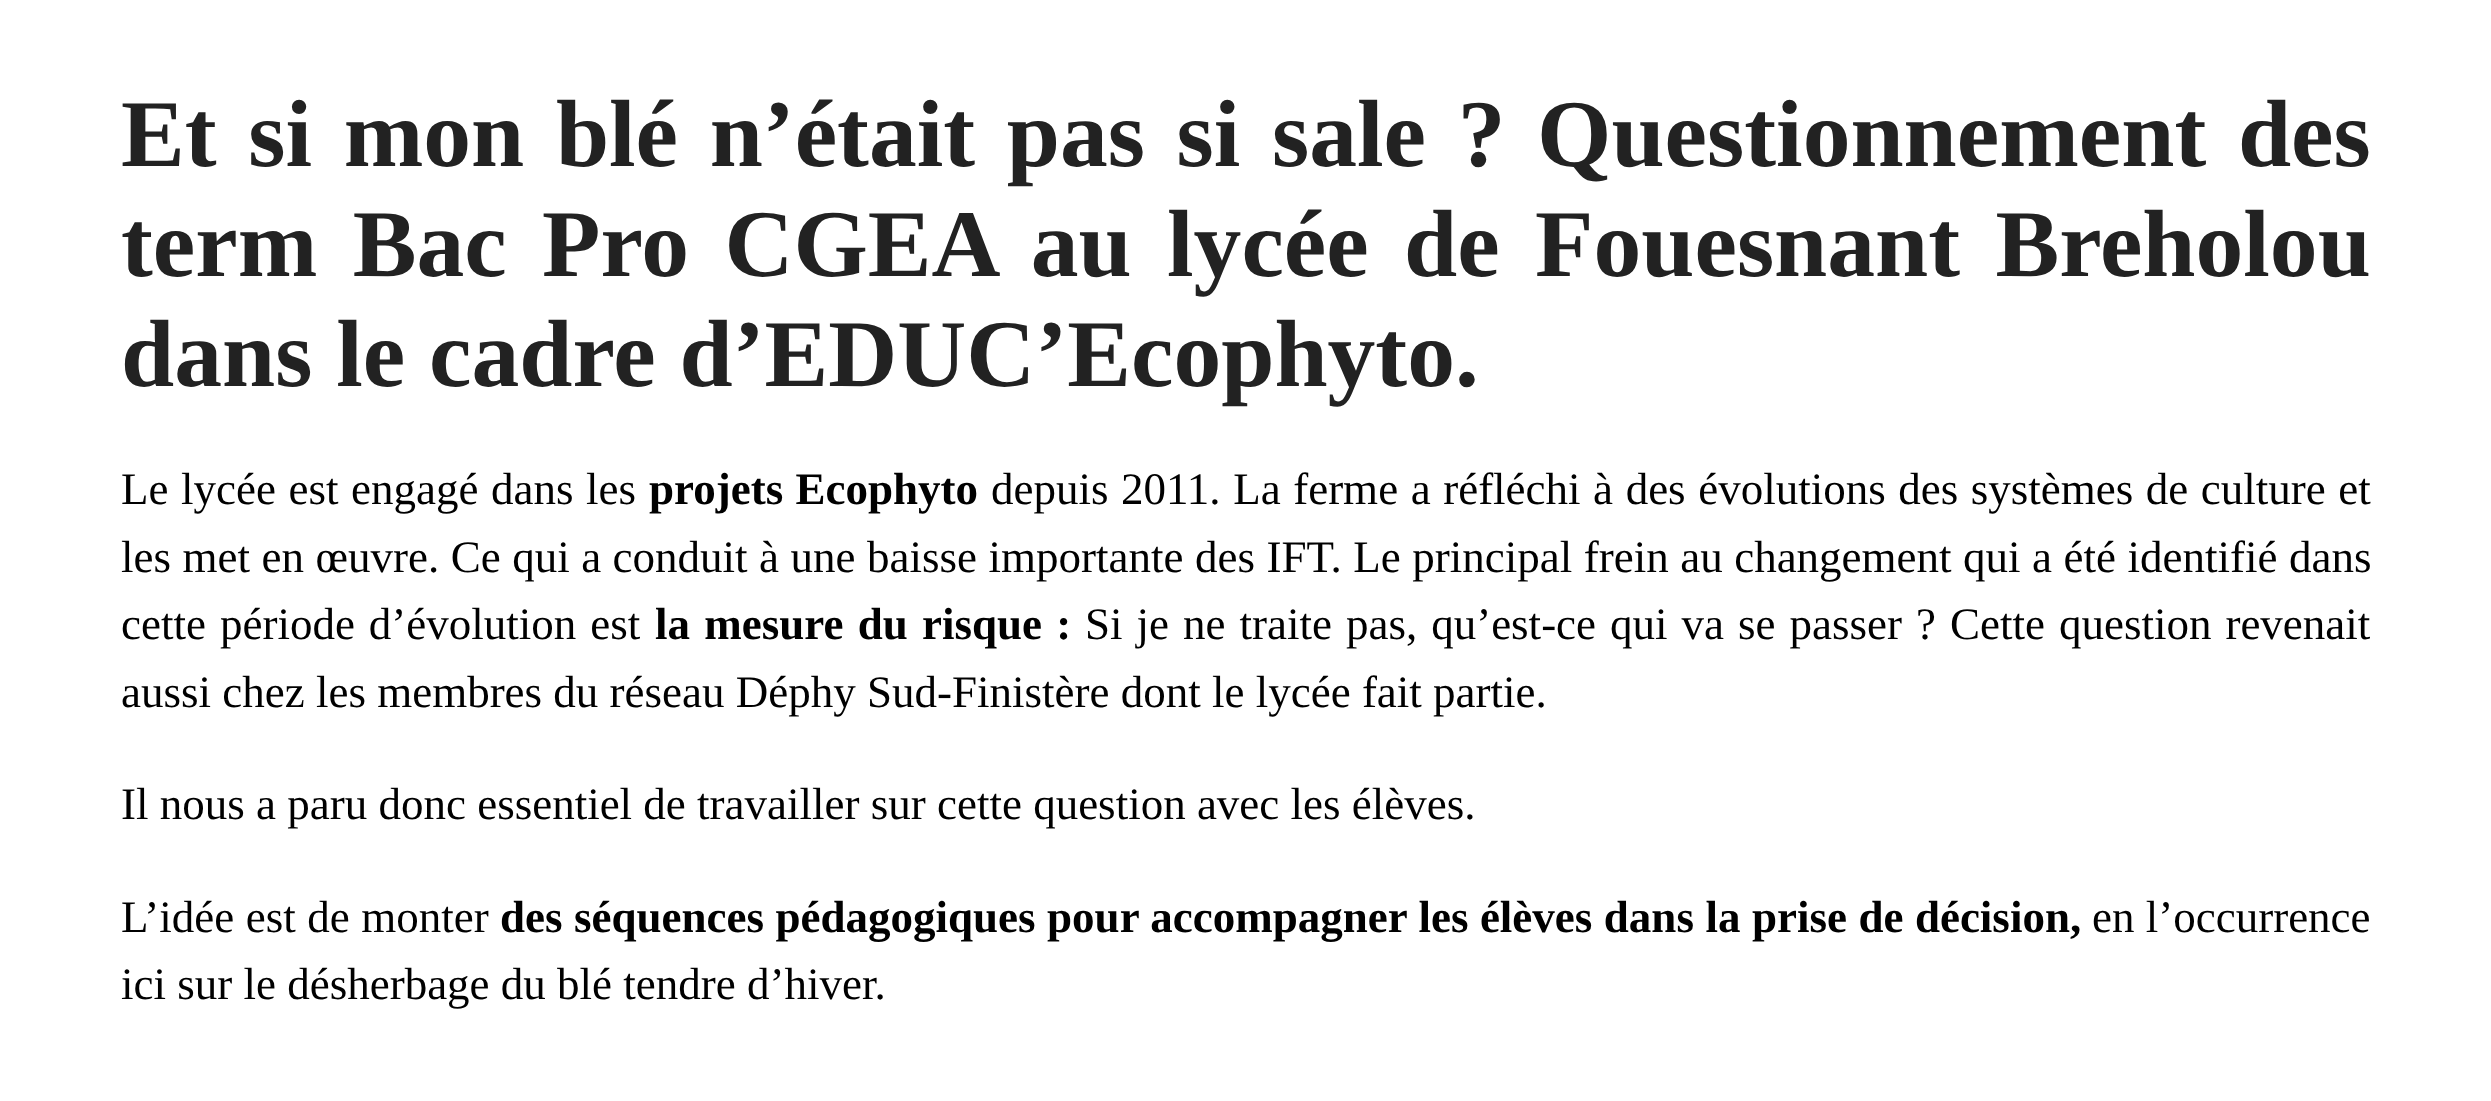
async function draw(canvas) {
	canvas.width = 2491;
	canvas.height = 1101;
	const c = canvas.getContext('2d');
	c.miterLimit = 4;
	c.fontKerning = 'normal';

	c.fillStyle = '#fff';
	c.fillRect(0, 0, 2491, 1101);
	c.wordSpacing = '7.75px';
	c.font = 'bold 95.6px Liberation Serif';
	c.fillStyle = '#222';
	c.fillText('Et si mon blé n’était pas si sale ? Questionnement des', 121, 166);
	c.wordSpacing = '11.5px';
	c.fillText('term Bac Pro CGEA au lycée de Fouesnant Breholou', 121, 276);
	c.wordSpacing = '0px';
	c.fillText('dans le cadre d’EDUC’Ecophyto.', 121, 386);
	c.wordSpacing = '1.3px';
	c.font = '45px Liberation Serif';
	c.fillStyle = '#000';
	c.fillText('Le lycée est engagé dans les', 121, 504);
	c.wordSpacing = '1px';
	c.font = 'bold 45px Liberation Serif';
	c.fillText('projets Ecophyto', 649, 504);
	c.wordSpacing = '1.3px';
	c.font = '45px Liberation Serif';
	c.fillText('depuis 2011. La ferme a réfléchi à des évolutions des systèmes de culture et', 991, 504);
	c.wordSpacing = '0.25px';
	c.fillText('les met en œuvre. Ce qui a conduit à une baisse importante des IFT. Le principal frein au changement qui a été identifié dans', 121, 572);
	c.wordSpacing = '2.75px';
	c.fillText('cette période d’évolution est', 121, 639);
	c.wordSpacing = '3px';
	c.font = 'bold 45px Liberation Serif';
	c.fillText('la mesure du risque :', 655, 639);
	c.wordSpacing = '2.75px';
	c.font = '45px Liberation Serif';
	c.fillText('Si je ne traite pas, qu’est-ce qui va se passer ? Cette question revenait', 1085, 639);
	c.wordSpacing = '0px';
	c.fillText('aussi chez les membres du réseau Déphy Sud-Finistère dont le lycée fait partie.', 121, 707);
	c.fillText('Il nous a paru donc essentiel de travailler sur cette question avec les élèves.', 121, 819);
	c.wordSpacing = '0.25px';
	c.fillText('L’idée est de monter', 121, 932);
	c.font = 'bold 45px Liberation Serif';
	c.fillText('des séquences pédagogiques pour accompagner les élèves dans la prise de décision,', 500, 932);
	c.wordSpacing = '0px';
	c.font = '45px Liberation Serif';
	c.fillText('en l’occurrence', 2092, 932);
	c.fillText('ici sur le désherbage du blé tendre d’hiver.', 121, 999);
}

draw(document.querySelector('canvas'));
